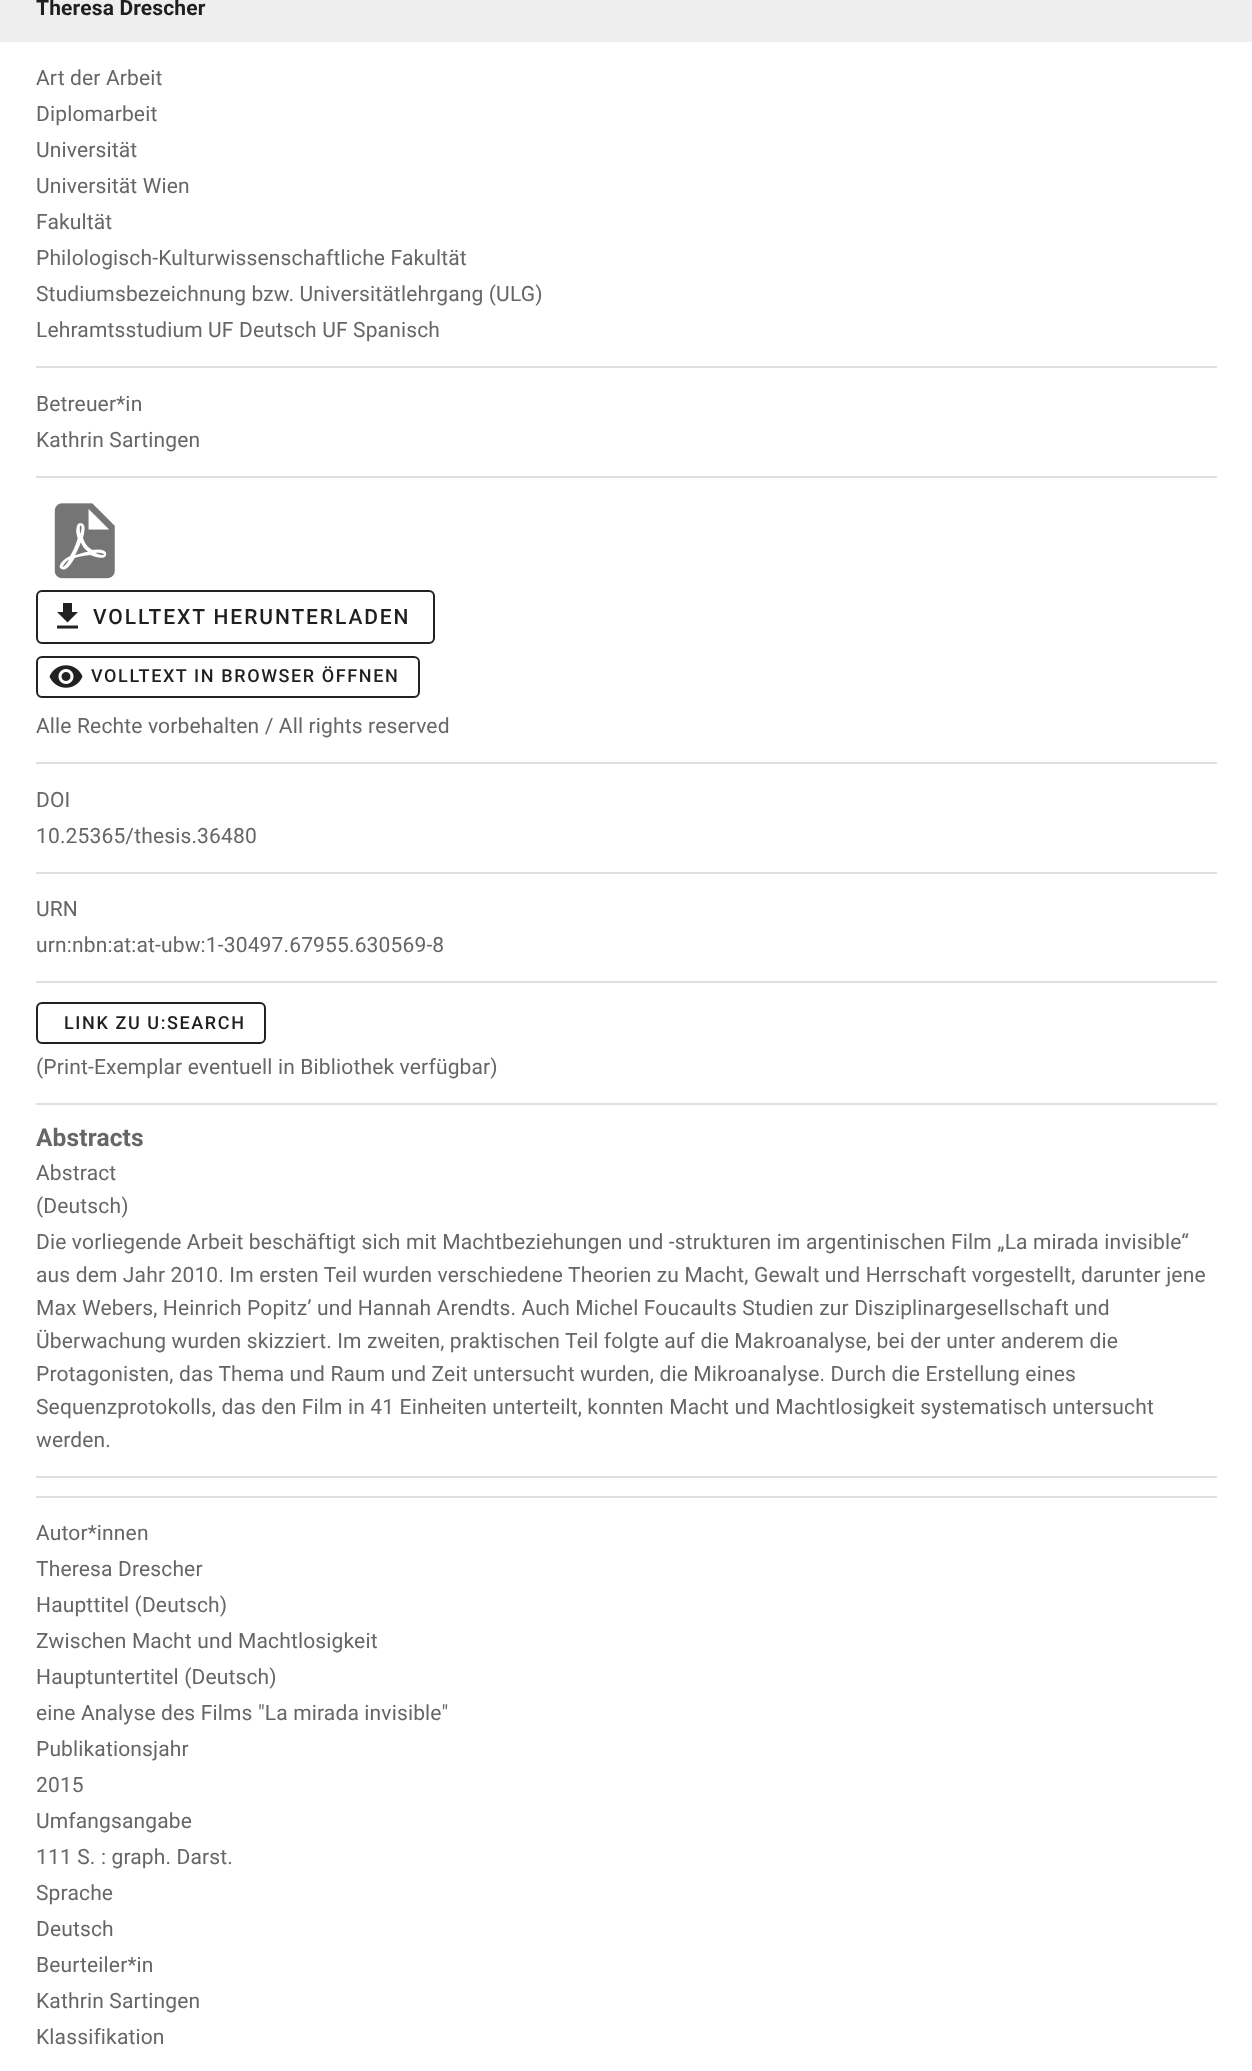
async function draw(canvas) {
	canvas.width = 1252;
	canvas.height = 2071;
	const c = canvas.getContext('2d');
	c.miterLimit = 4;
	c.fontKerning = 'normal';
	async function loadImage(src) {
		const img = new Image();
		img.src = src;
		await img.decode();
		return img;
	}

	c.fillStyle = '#fff';
	c.fillRect(0, 0, 1252, 2071);
	c.fillStyle = '#eee';
	c.fillRect(0, 0, 1252, 42);
	c.letterSpacing = '0.15px';
	c.font = 'bold 21px Roboto';
	c.fillStyle = '#1f1f1f';
	c.fillText('Theresa Drescher', 36, 15);
	c.font = '21px Roboto';
	c.fillStyle = '#666';
	for (const [text, x, y] of [
		['Art der Arbeit', 36, 85],
		['Diplomarbeit', 36, 121],
		['Universität', 36, 157],
		['Universität Wien', 36, 193],
		['Fakultät', 36, 229],
		['Philologisch-Kulturwissenschaftliche Fakultät', 36, 265],
		['Studiumsbezeichnung bzw. Universitätlehrgang (ULG)', 36, 301],
		['Lehramtsstudium UF Deutsch UF Spanisch', 36, 337],
	]) {
		c.fillText(text, x, y);
	}
	c.fillStyle = '#e0e0e0';
	c.fillRect(36, 366, 1181, 2);
	c.fillStyle = '#666';
	c.fillText('Betreuer*in', 36, 411);
	c.fillText('Kathrin Sartingen', 36, 447);
	c.fillStyle = '#e0e0e0';
	c.fillRect(36, 476, 1181, 2);
	c.drawImage(await loadImage('img1.png'), 54, 503, 61, 76);
	c.beginPath();
	c.roundRect(37, 591, 397, 52, 5);
	c.strokeStyle = '#212121';
	c.lineWidth = 2;
	c.stroke();
	c.drawImage(await loadImage('img2.png'), 57, 603, 21, 26);
	c.letterSpacing = '1.9px';
	c.font = '500 21px Roboto';
	c.fillStyle = '#1f1f1f';
	c.fillText('VOLLTEXT HERUNTERLADEN', 93, 624);
	c.beginPath();
	c.roundRect(37, 657, 382, 40, 5);
	c.stroke();
	c.drawImage(await loadImage('img3.png'), 49, 665, 34, 23);
	c.letterSpacing = '1.6px';
	c.font = '500 18px Roboto';
	c.fillText('VOLLTEXT IN BROWSER ÖFFNEN', 91, 682);
	c.letterSpacing = '0.15px';
	c.font = '21px Roboto';
	c.fillStyle = '#666';
	c.fillText('Alle Rechte vorbehalten / All rights reserved', 36, 733);
	c.fillStyle = '#e0e0e0';
	c.fillRect(36, 762, 1181, 2);
	c.fillStyle = '#666';
	c.fillText('DOI', 36, 807);
	c.fillText('10.25365/thesis.36480', 36, 843);
	c.fillStyle = '#e0e0e0';
	c.fillRect(36, 872, 1181, 2);
	c.fillStyle = '#666';
	c.fillText('URN', 36, 916);
	c.fillText('urn:nbn:at:at-ubw:1-30497.67955.630569-8', 36, 952);
	c.fillStyle = '#e0e0e0';
	c.fillRect(36, 981, 1181, 2);
	c.beginPath();
	c.roundRect(37, 1003, 228, 40, 5);
	c.stroke();
	c.letterSpacing = '1.6px';
	c.font = '500 18px Roboto';
	c.fillStyle = '#1f1f1f';
	c.fillText('LINK ZU U:SEARCH', 64, 1029);
	c.letterSpacing = '0.15px';
	c.font = '21px Roboto';
	c.fillStyle = '#666';
	c.fillText('(Print-Exemplar eventuell in Bibliothek verfügbar)', 36, 1074);
	c.fillStyle = '#e0e0e0';
	c.fillRect(36, 1103, 1181, 2);
	c.font = 'bold 24.5px Roboto';
	c.fillStyle = '#666';
	c.fillText('Abstracts', 36, 1146);
	c.font = '21px Roboto';
	for (const [text, x, y] of [
		['Abstract', 36, 1180],
		['(Deutsch)', 36, 1213],
		['Die vorliegende Arbeit beschäftigt sich mit Machtbeziehungen und -strukturen im argentinischen Film „La mirada invisible“', 36, 1249],
		['aus dem Jahr 2010. Im ersten Teil wurden verschiedene Theorien zu Macht, Gewalt und Herrschaft vorgestellt, darunter jene', 36, 1282],
		['Max Webers, Heinrich Popitz’ und Hannah Arendts. Auch Michel Foucaults Studien zur Disziplinargesellschaft und', 36, 1315],
		['Überwachung wurden skizziert. Im zweiten, praktischen Teil folgte auf die Makroanalyse, bei der unter anderem die', 36, 1348],
		['Protagonisten, das Thema und Raum und Zeit untersucht wurden, die Mikroanalyse. Durch die Erstellung eines', 36, 1381],
		['Sequenzprotokolls, das den Film in 41 Einheiten unterteilt, konnten Macht und Machtlosigkeit systematisch untersucht', 36, 1414],
		['werden.', 36, 1447],
	]) {
		c.fillText(text, x, y);
	}
	c.fillStyle = '#e0e0e0';
	c.fillRect(36, 1476, 1181, 2);
	c.fillRect(36, 1496, 1181, 2);
	c.fillStyle = '#666';
	for (const [text, x, y] of [
		['Autor*innen', 36, 1540],
		['Theresa Drescher', 36, 1576],
		['Haupttitel (Deutsch)', 36, 1612],
		['Zwischen Macht und Machtlosigkeit', 36, 1648],
		['Hauptuntertitel (Deutsch)', 36, 1684],
		['eine Analyse des Films "La mirada invisible"', 36, 1720],
		['Publikationsjahr', 36, 1756],
		['2015', 36, 1792],
		['Umfangsangabe', 36, 1828],
		['111 S. : graph. Darst.', 36, 1864],
		['Sprache', 36, 1900],
		['Deutsch', 36, 1936],
		['Beurteiler*in', 36, 1972],
		['Kathrin Sartingen', 36, 2008],
		['Klassifikation', 36, 2044],
	]) {
		c.fillText(text, x, y);
	}
}

draw(document.querySelector('canvas'));
